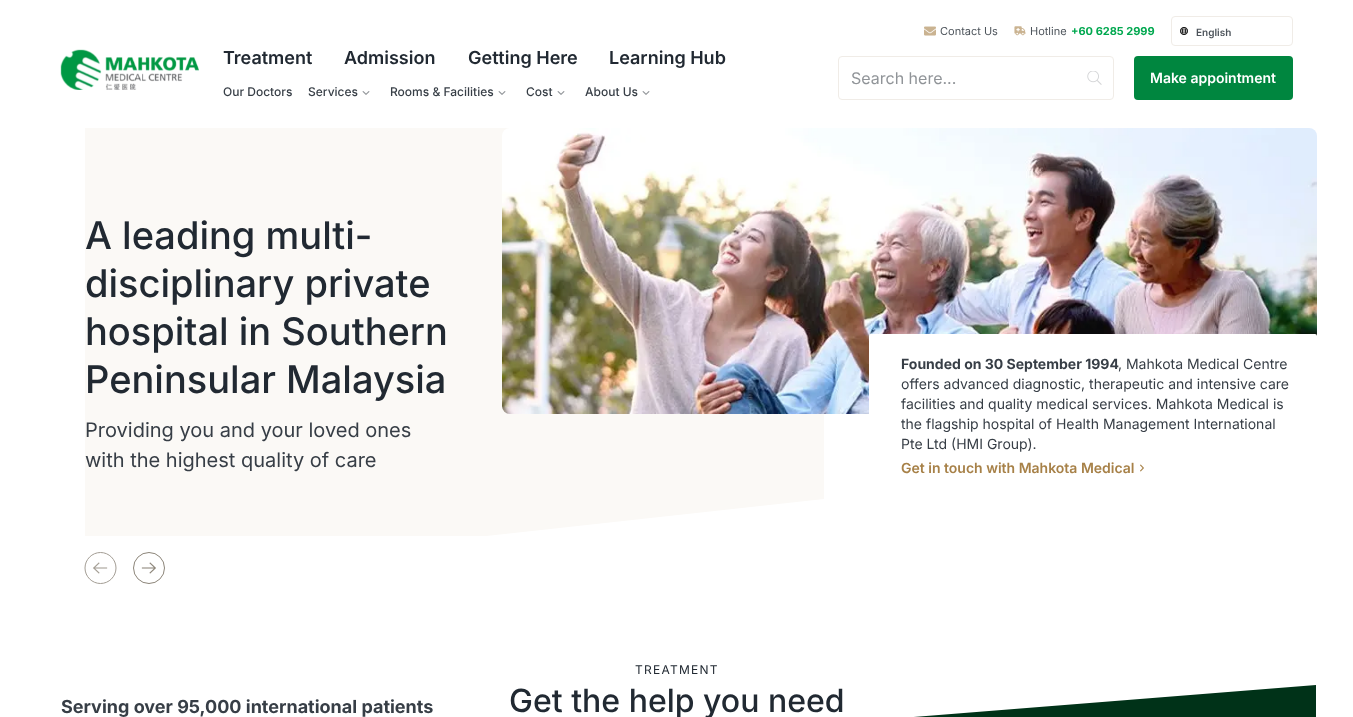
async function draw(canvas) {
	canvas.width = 1353;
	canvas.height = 717;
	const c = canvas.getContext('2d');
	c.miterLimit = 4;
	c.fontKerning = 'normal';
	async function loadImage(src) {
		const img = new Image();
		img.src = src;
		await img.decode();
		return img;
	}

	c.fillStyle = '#fff';
	c.fillRect(0, 0, 1353, 717);
	c.drawImage(await loadImage('img1.png'), 924, 26, 12, 10);
	c.font = '11px Inter';
	c.fillStyle = '#4d545b';
	c.fillText('Contact Us', 940, 35);
	c.drawImage(await loadImage('img2.png'), 1014, 26, 12, 10);
	c.fillText('Hotline', 1030, 35);
	c.font = 'bold 11px Inter';
	c.fillStyle = '#00a84f';
	c.fillText('+60 6285 2999', 1071, 35);
	c.beginPath();
	c.roundRect(1171.5, 16.5, 121, 29, 3.5);
	c.strokeStyle = '#f0ece7';
	c.stroke();
	c.drawImage(await loadImage('img3.png'), 1180, 27, 8, 8);
	c.font = '600 10px Inter';
	c.fillStyle = '#4d545b';
	c.fillText('English', 1196, 36);
	c.drawImage(await loadImage('img4.png'), 60, 49, 139, 41);
	c.font = '600 18px Inter';
	c.fillStyle = '#212932';
	for (const [text, x, y] of [
		['Treatment', 223, 64],
		['Admission', 344, 64],
		['Getting Here', 468, 64],
		['Learning Hub', 609, 64],
	]) {
		c.fillText(text, x, y);
	}
	c.font = '500 12px Inter';
	c.fillStyle = '#373e46';
	c.fillText('Our Doctors', 223, 96);
	c.fillText('Services', 308, 96);
	c.drawImage(await loadImage('img5.png'), 362, 91, 8, 4);
	c.fillText('Rooms & Facilities', 390, 96);
	c.drawImage(await loadImage('img5.png'), 498, 91, 8, 4);
	c.fillText('Cost', 526, 96);
	c.drawImage(await loadImage('img5.png'), 557, 91, 8, 4);
	c.fillText('About Us', 585, 96);
	c.drawImage(await loadImage('img5.png'), 642, 91, 8, 4);
	c.beginPath();
	c.roundRect(838.5, 56.5, 275, 43, 3.5);
	c.stroke();
	c.font = '16px Inter';
	c.fillStyle = '#909498';
	c.fillText('Search here...', 851, 84);
	c.drawImage(await loadImage('img6.png'), 1087, 71, 15, 14);
	c.fillStyle = '#00863f';
	c.beginPath();
	c.roundRect(1134, 56, 159, 44, 4);
	c.fill();
	c.font = '600 14px Inter';
	c.fillStyle = '#fff';
	c.fillText('Make appointment', 1150, 83);
	c.save();
	c.beginPath();
	c.rect(61, 128, 1256, 408);
	c.clip();
	c.fillStyle = '#fbf9f6';
	c.beginPath();
	c.moveTo(85, 0);
	c.lineTo(85, 580);
	c.lineTo(824, 499);
	c.lineTo(824, 0);
	c.closePath();
	c.fill();
	c.restore();
	c.font = '500 38px Inter';
	c.fillStyle = '#212932';
	for (const [text, x, y] of [
		['A leading multi-', 85, 249],
		['disciplinary private', 85, 297],
		['hospital in Southern', 85, 345],
		['Peninsular Malaysia', 85, 393],
	]) {
		c.fillText(text, x, y);
	}
	c.font = '20px Inter';
	c.fillStyle = '#373e46';
	c.fillText('Providing you and your loved ones', 85, 437);
	c.fillText('with the highest quality of care', 85, 467);
	c.drawImage(await loadImage('img7.png'), 502, 128, 815, 286);
	c.fillStyle = '#fff';
	c.beginPath();
	c.roundRect(869, 334, 448, 160, 2);
	c.fill();
	c.font = 'bold 14px Inter';
	c.fillStyle = '#373e46';
	c.fillText('Founded on 30 September 1994', 901, 369);
	c.font = '14px Inter';
	for (const [text, x, y] of [
		[', Mahkota Medical Centre', 1118, 369],
		['offers advanced diagnostic, therapeutic and intensive care', 901, 389],
		['facilities and quality medical services. Mahkota Medical is', 901, 409],
		['the flagship hospital of Health Management International', 901, 429],
		['Pte Ltd (HMI Group).', 901, 449],
	]) {
		c.fillText(text, x, y);
	}
	c.font = '600 14px Inter';
	c.fillStyle = '#a78148';
	c.fillText('Get in touch with Mahkota Medical', 901, 473);
	c.drawImage(await loadImage('img8.png'), 1140, 464, 4, 8);
	c.beginPath();
	c.moveTo(100.5, 583.5);
	c.bezierCurveTo(92, 583.5, 85, 576.5, 85, 568);
	c.bezierCurveTo(85, 559.5, 92, 552.5, 100.5, 552.5);
	c.bezierCurveTo(109, 552.5, 116, 559.5, 116, 568);
	c.bezierCurveTo(116, 576.5, 109, 583.5, 100.5, 583.5);
	c.closePath();
	c.strokeStyle = '#a39d94';
	c.stroke();
	c.drawImage(await loadImage('img9.png'), 93, 562, 15, 12);
	c.beginPath();
	c.arc(149, 568, 15.5, 0, 2 * Math.PI);
	c.strokeStyle = '#8c8579';
	c.stroke();
	c.drawImage(await loadImage('img10.png'), 141, 562, 15, 12);
	c.font = 'bold 18px Inter';
	c.fillStyle = '#373e46';
	c.fillText('Serving over 95,000 international patients', 61, 713);
	c.fillStyle = '#003218';
	c.beginPath();
	c.moveTo(1316, 685);
	c.lineTo(1316, 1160);
	c.lineTo(486, 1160);
	c.lineTo(486, 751);
	c.closePath();
	c.fill();
	c.letterSpacing = '1.25px';
	c.font = '12px Inter';
	c.fillStyle = '#212932';
	c.fillText('TREATMENT', 635, 674);
	c.letterSpacing = '0px';
	c.font = '500 32px Inter';
	c.fillText('Get the help you need', 509, 712);
}

draw(document.querySelector('canvas'));
